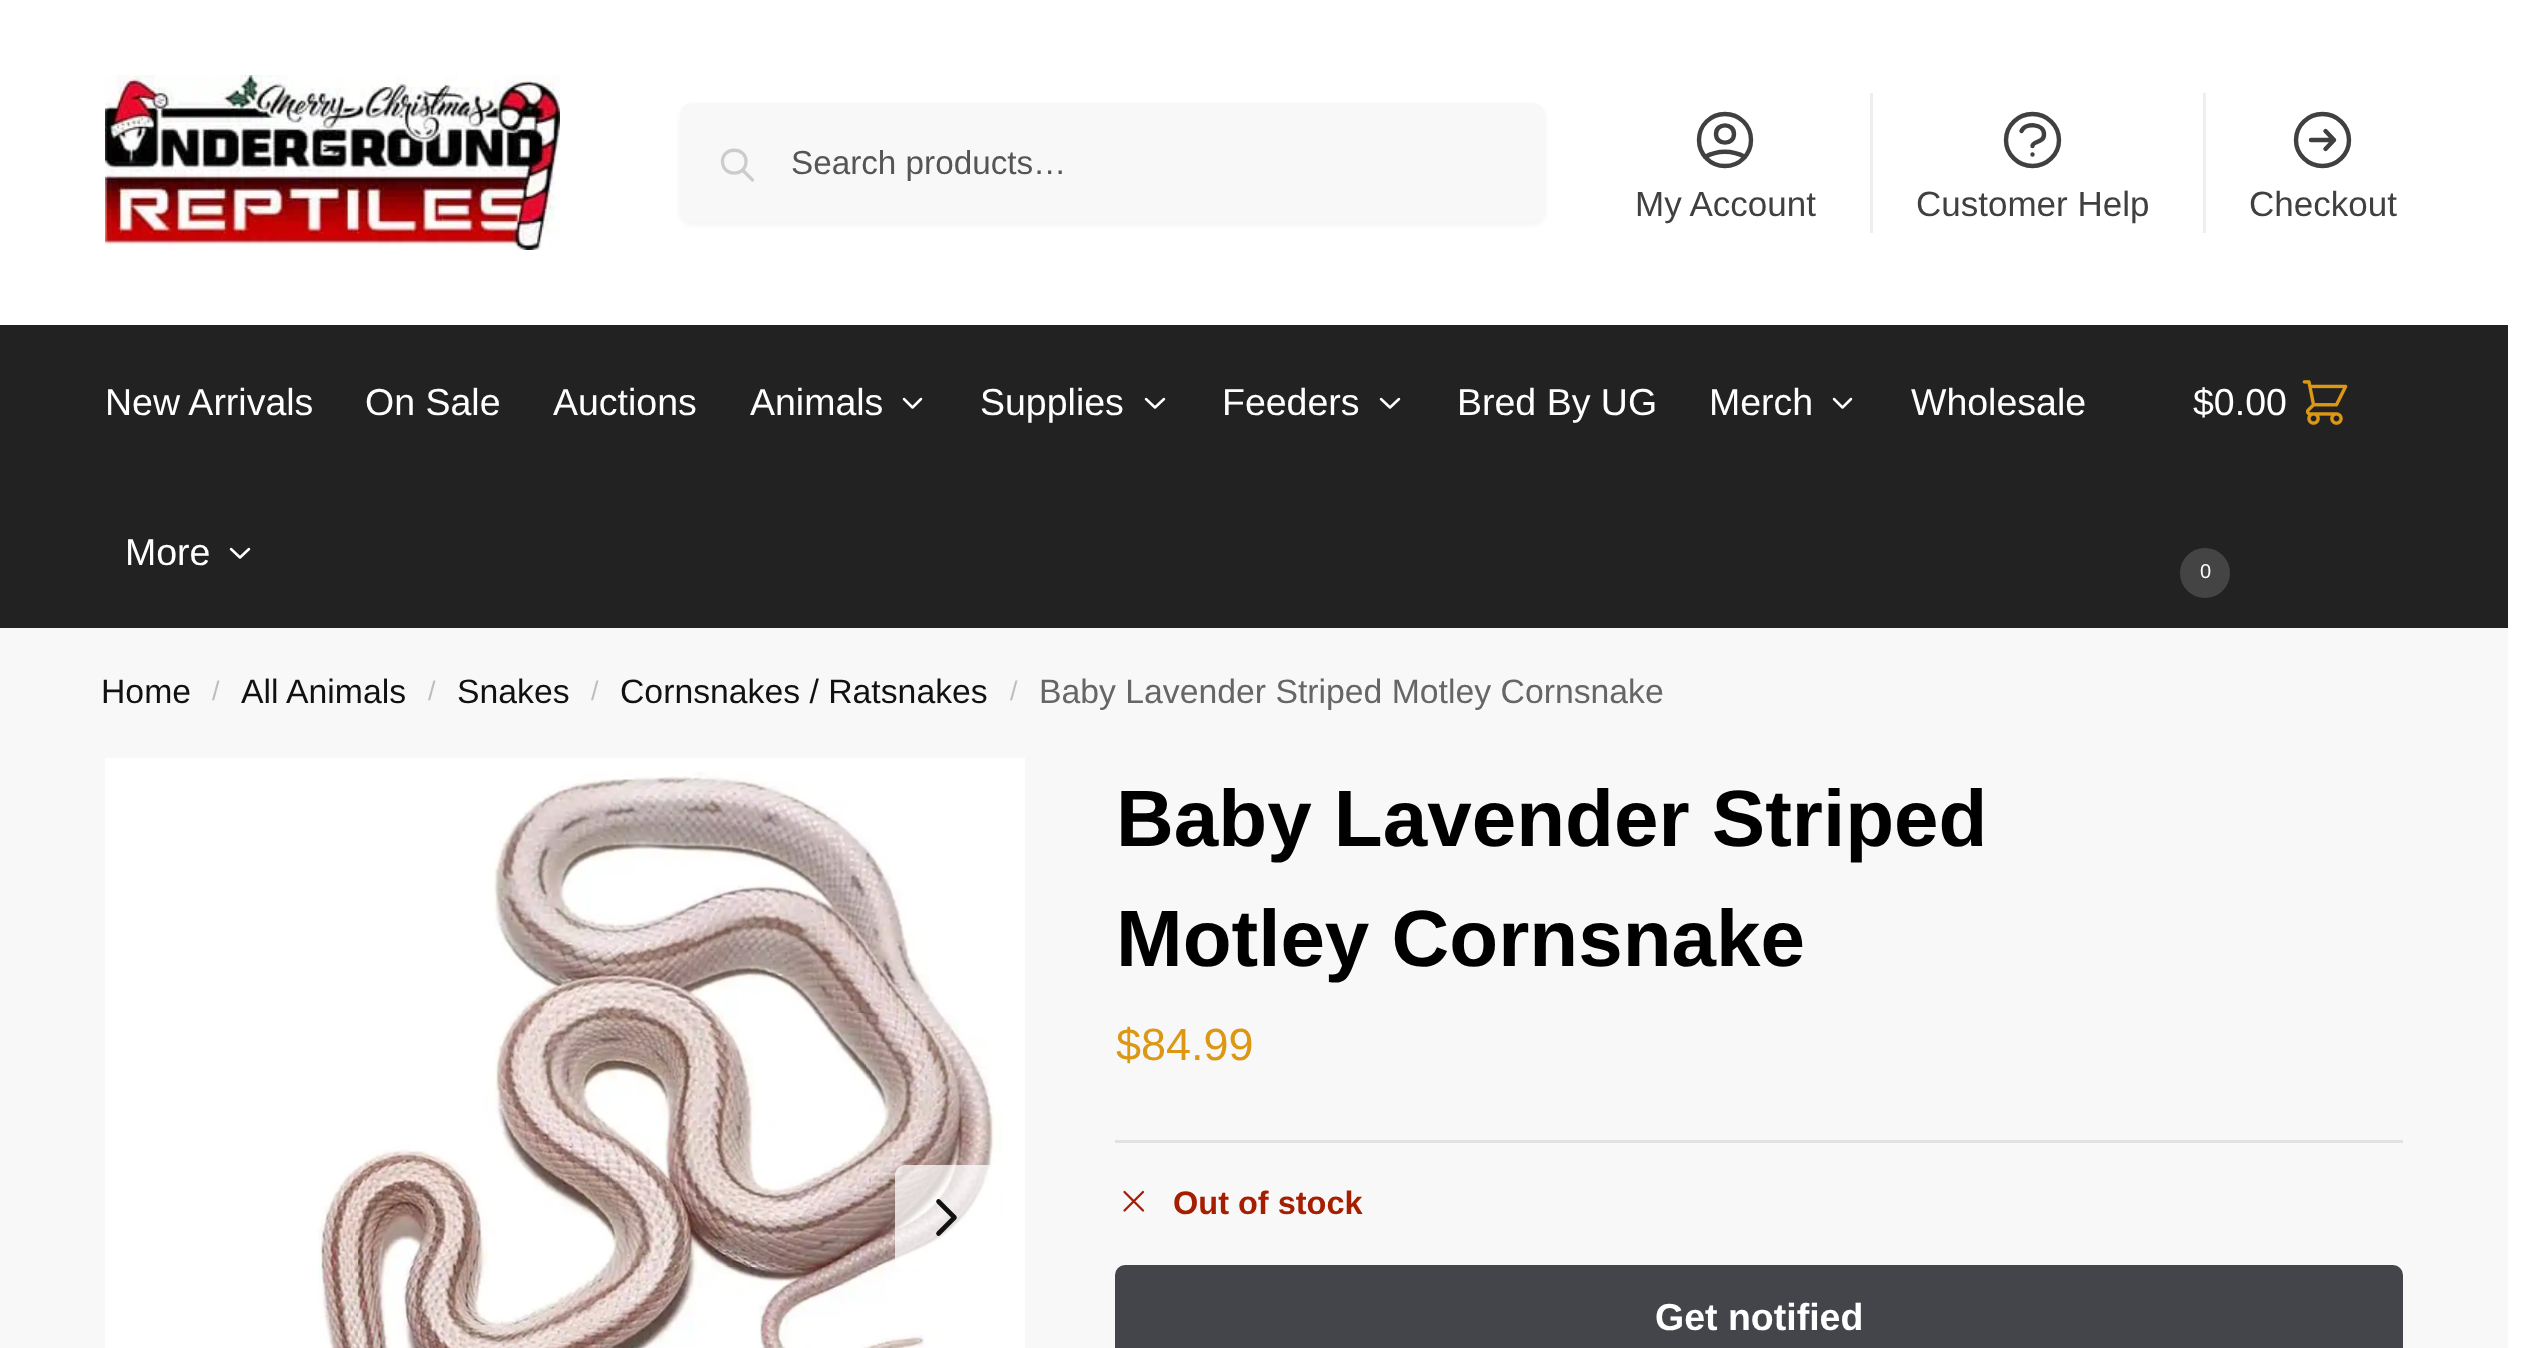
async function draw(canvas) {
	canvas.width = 2544;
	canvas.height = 1348;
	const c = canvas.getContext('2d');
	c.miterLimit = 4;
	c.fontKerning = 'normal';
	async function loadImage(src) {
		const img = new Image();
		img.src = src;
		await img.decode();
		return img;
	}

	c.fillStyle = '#fff';
	c.fillRect(0, 0, 2544, 1348);
	c.drawImage(await loadImage('img1.png'), 105, 75, 455, 175);
	c.fillStyle = '#0000000d';
	c.filter = 'blur(2.5px)';
	c.beginPath();
	c.roundRect(680, 105, 865, 120, 13);
	c.fill();
	c.filter = 'none';
	c.fillStyle = '#f8f8f8';
	c.beginPath();
	c.roundRect(680, 103, 865, 120, 13);
	c.fill();
	c.beginPath();
	c.moveTo(752.5, 180);
	c.lineTo(742.5, 170);
	c.moveTo(746, 161.5);
	c.bezierCurveTo(746, 177, 722.5, 177, 722.5, 161.5);
	c.bezierCurveTo(722.5, 146.5, 746, 146.5, 746, 161.5);
	c.closePath();
	c.strokeStyle = '#ccc';
	c.lineWidth = 3.3;
	c.lineCap = 'round';
	c.lineJoin = 'round';
	c.stroke();
	c.font = '33.25px Liberation Sans';
	c.fillStyle = '#555';
	c.fillText('Search products…', 791, 174);
	c.beginPath();
	c.moveTo(1705, 157);
	c.bezierCurveTo(1717.5, 150, 1732.5, 150, 1745, 157);
	c.moveTo(1734, 134);
	c.bezierCurveTo(1734, 145.5, 1716, 145.5, 1716, 134);
	c.bezierCurveTo(1716, 122.5, 1734, 122.5, 1734, 134);
	c.closePath();
	c.moveTo(1751, 140);
	c.bezierCurveTo(1751, 154.5, 1739.5, 166, 1725, 166);
	c.bezierCurveTo(1710.5, 166, 1699, 154.5, 1699, 140);
	c.bezierCurveTo(1699, 125.5, 1710.5, 114, 1725, 114);
	c.bezierCurveTo(1739.5, 114, 1751, 125.5, 1751, 140);
	c.closePath();
	c.strokeStyle = '#404040';
	c.lineWidth = 4.4;
	c.stroke();
	c.font = '35px Liberation Sans';
	c.fillStyle = '#404040';
	c.fillText('My Account', 1635, 216);
	c.fillStyle = '#eee';
	c.fillRect(1870, 93, 3, 140);
	c.beginPath();
	c.moveTo(2021.5, 131);
	c.bezierCurveTo(2025.5, 122.5, 2044, 123.5, 2044, 134);
	c.bezierCurveTo(2044.5, 143, 2032.5, 141, 2032.5, 146);
	c.moveTo(2032.5, 154.5);
	c.lineTo(2032.5, 154.5);
	c.moveTo(2059, 140);
	c.bezierCurveTo(2059, 154.5, 2047, 166, 2032.5, 166);
	c.bezierCurveTo(2018, 166, 2006, 154.5, 2006, 140);
	c.bezierCurveTo(2006, 125.5, 2018, 114, 2032.5, 114);
	c.bezierCurveTo(2047, 114, 2059, 125.5, 2059, 140);
	c.closePath();
	c.stroke();
	c.fillStyle = '#404040';
	c.fillText('Customer Help', 1916, 216);
	c.fillStyle = '#eee';
	c.fillRect(2203, 93, 3, 140);
	c.beginPath();
	c.moveTo(2325.5, 131);
	c.lineTo(2334, 140);
	c.moveTo(2334, 140);
	c.lineTo(2325.5, 149);
	c.moveTo(2334, 140);
	c.lineTo(2311, 140);
	c.moveTo(2349, 140);
	c.bezierCurveTo(2349, 154.5, 2337, 166, 2322.5, 166);
	c.bezierCurveTo(2308, 166, 2296, 154.5, 2296, 140);
	c.bezierCurveTo(2296, 125.5, 2308, 114, 2322.5, 114);
	c.bezierCurveTo(2337, 114, 2349, 125.5, 2349, 140);
	c.closePath();
	c.stroke();
	c.fillStyle = '#404040';
	c.fillText('Checkout', 2249, 216);
	c.fillStyle = '#222';
	c.fillRect(0, 325, 2508, 303);
	c.font = '37.5px Liberation Sans';
	c.fillStyle = '#fff';
	for (const [text, x, y] of [
		['New Arrivals', 105, 415],
		['On Sale', 365, 415],
		['Auctions', 553, 415],
		['Animals', 750, 415],
	]) {
		c.fillText(text, x, y);
	}
	c.beginPath();
	c.moveTo(921, 399);
	c.lineTo(912.5, 407.5);
	c.lineTo(904, 399);
	c.strokeStyle = '#fff';
	c.lineWidth = 2.5;
	c.stroke();
	c.fillText('Supplies', 980, 415);
	c.beginPath();
	c.moveTo(1164, 399);
	c.lineTo(1155, 407.5);
	c.lineTo(1146, 399);
	c.stroke();
	c.fillText('Feeders', 1222, 415);
	c.beginPath();
	c.moveTo(1399, 399);
	c.lineTo(1390, 407.5);
	c.lineTo(1381, 399);
	c.stroke();
	c.fillText('Bred By UG', 1457, 415);
	c.fillText('Merch', 1709, 415);
	c.beginPath();
	c.moveTo(1851, 399);
	c.lineTo(1842.5, 407.5);
	c.lineTo(1834, 399);
	c.stroke();
	c.fillText('Wholesale', 1911, 415);
	c.fillText('More', 125, 565);
	c.beginPath();
	c.moveTo(249, 549);
	c.lineTo(240, 557.5);
	c.lineTo(231, 549);
	c.stroke();
	c.fillText('$0.00', 2193, 415);
	c.drawImage(await loadImage('img2.png'), 2302, 380, 46, 45);
	c.fillStyle = '#444';
	c.beginPath();
	c.arc(2205, 573, 23.5, 0, 2 * Math.PI);
	c.fill();
	c.strokeStyle = '#444';
	c.lineWidth = 3;
	c.stroke();
	c.font = '20px Liberation Sans';
	c.fillStyle = '#fff';
	c.fillText('0', 2200, 578);
	c.fillStyle = '#f8f8f8';
	c.fillRect(0, 628, 2508, 720);
	c.font = '33.75px Liberation Sans';
	c.fillStyle = '#111';
	c.fillText('Home', 101, 703);
	c.font = '27px Liberation Sans';
	c.fillStyle = '#bebebe';
	c.fillText('/', 212, 700);
	c.font = '33.75px Liberation Sans';
	c.fillStyle = '#111';
	c.fillText('All Animals', 241, 703);
	c.font = '27px Liberation Sans';
	c.fillStyle = '#bebebe';
	c.fillText('/', 428, 700);
	c.font = '33.75px Liberation Sans';
	c.fillStyle = '#111';
	c.fillText('Snakes', 457, 703);
	c.font = '27px Liberation Sans';
	c.fillStyle = '#bebebe';
	c.fillText('/', 591, 700);
	c.font = '33.75px Liberation Sans';
	c.fillStyle = '#111';
	c.fillText('Cornsnakes / Ratsnakes', 620, 703);
	c.font = '27px Liberation Sans';
	c.fillStyle = '#bebebe';
	c.fillText('/', 1010, 700);
	c.font = '33.75px Liberation Sans';
	c.fillStyle = '#666';
	c.fillText('Baby Lavender Striped Motley Cornsnake', 1039, 703);
	c.fillStyle = '#fff';
	c.fillRect(105, 758, 920, 590);
	c.drawImage(await loadImage('img3.png'), 318, 771, 685, 577);
	c.fillStyle = '#ffffffbf';
	c.beginPath();
	c.roundRect(895, 1165, 105, 105, 10);
	c.fill();
	c.beginPath();
	c.moveTo(938.5, 1233.5);
	c.lineTo(954.5, 1217.5);
	c.lineTo(938.5, 1201.5);
	c.strokeStyle = '#111';
	c.lineWidth = 4.6;
	c.stroke();
	c.font = 'bold 80px Liberation Sans';
	c.fillStyle = '#000';
	c.fillText('Baby Lavender Striped', 1116, 846);
	c.fillText('Motley Cornsnake', 1116, 966);
	c.font = '45px Liberation Sans';
	c.fillStyle = '#dc9814';
	c.fillText('$84.99', 1116, 1060);
	c.fillStyle = '#e2e2e2';
	c.fillRect(1115, 1140, 1288, 3);
	c.beginPath();
	c.moveTo(1124.5, 1210.5);
	c.lineTo(1143, 1192);
	c.moveTo(1124.5, 1192);
	c.lineTo(1143, 1210.5);
	c.strokeStyle = '#a61e00';
	c.lineWidth = 2.3;
	c.stroke();
	c.font = 'bold 32.5px Liberation Sans';
	c.fillStyle = '#a61e00';
	c.fillText('Out of stock', 1173, 1214);
	c.fillStyle = '#43454b';
	c.beginPath();
	c.roundRect(1115, 1265, 1288, 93, 10);
	c.fill();
	c.font = 'bold 37.5px Liberation Sans';
	c.fillStyle = '#fff';
	c.fillText('Get notified', 1655, 1330);
}

draw(document.querySelector('canvas'));
